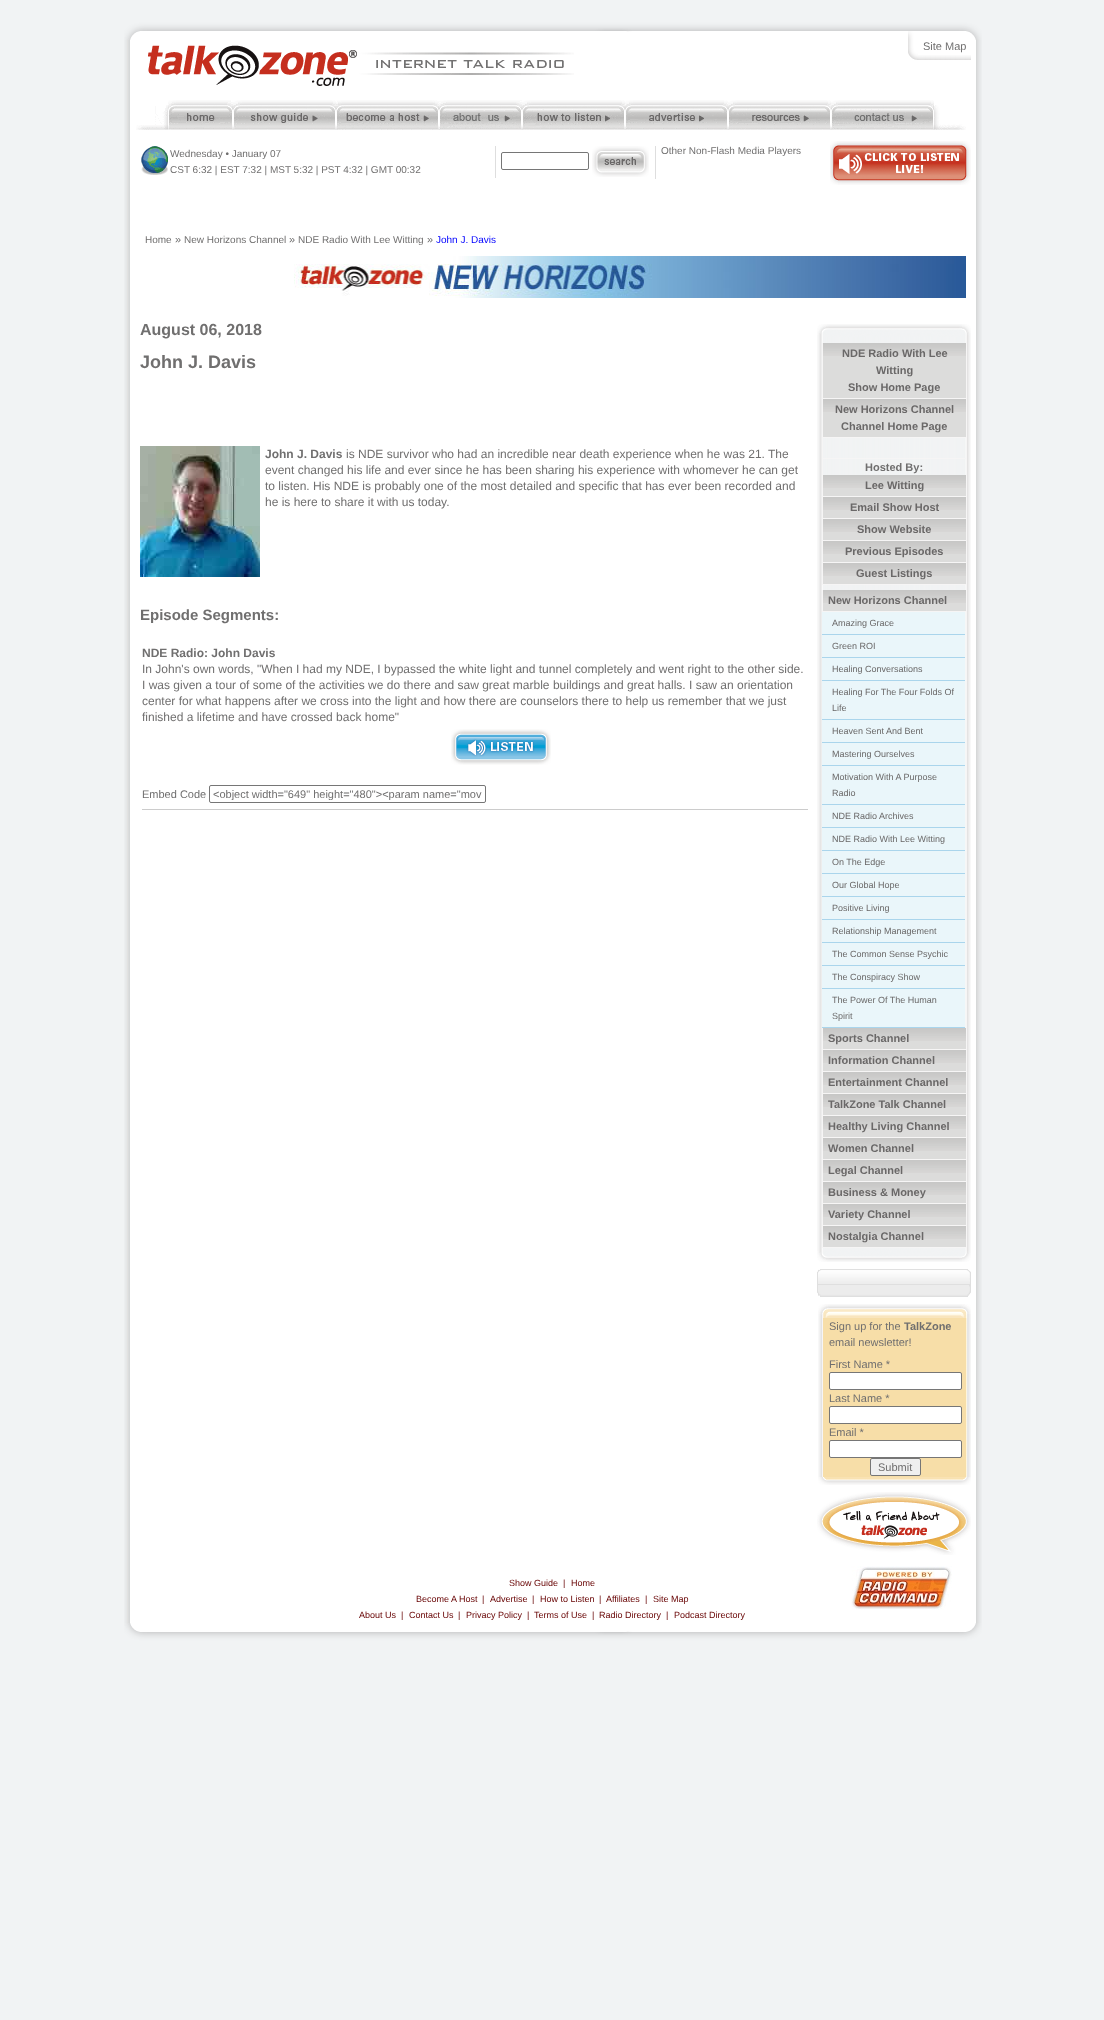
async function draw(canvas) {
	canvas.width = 1104;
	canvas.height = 2020;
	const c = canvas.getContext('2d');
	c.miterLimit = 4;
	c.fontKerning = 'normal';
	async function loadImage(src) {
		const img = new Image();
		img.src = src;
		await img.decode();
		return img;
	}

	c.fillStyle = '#f1f3f4';
	c.fillRect(0, 0, 1104, 2020);
	c.drawImage(await loadImage('img1.png'), 124, 40, 858, 101);
	c.drawImage(await loadImage('img2.png'), 124, 20, 858, 20);
	c.drawImage(await loadImage('img3.png'), 148, 45, 426, 41);
	c.drawImage(await loadImage('img4.png'), 908, 31, 15, 29);
	c.drawImage(await loadImage('img5.png'), 923, 55, 48, 5);
	c.font = '11px Liberation Sans';
	c.fillStyle = '#706f6f';
	c.fillText('Site Map', 923, 50);
	c.drawImage(await loadImage('img6.png'), 136, 105, 32, 25);
	c.drawImage(await loadImage('img7.png'), 168, 100, 65, 30);
	c.drawImage(await loadImage('img8.png'), 233, 100, 103, 30);
	c.drawImage(await loadImage('img9.png'), 336, 100, 103, 30);
	c.drawImage(await loadImage('img10.png'), 439, 100, 83, 30);
	c.drawImage(await loadImage('img11.png'), 522, 100, 103, 30);
	c.drawImage(await loadImage('img12.png'), 625, 100, 103, 30);
	c.drawImage(await loadImage('img13.png'), 728, 100, 103, 30);
	c.drawImage(await loadImage('img14.png'), 831, 100, 103, 30);
	c.drawImage(await loadImage('img15.png'), 934, 105, 32, 25);
	c.drawImage(await loadImage('img16.png'), 124, 141, 858, 1424);
	c.fillStyle = '#dedede';
	c.fillRect(495, 146, 1, 32);
	c.drawImage(await loadImage('img17.png'), 141, 146, 27, 29);
	c.font = '10px Liberation Sans';
	c.fillStyle = '#706f6f';
	c.fillText('Wednesday • January 07', 170, 157);
	c.fillText('CST 6:32 | EST 7:32 | MST 5:32 | PST 4:32 | GMT 00:32', 170, 173);
	c.fillStyle = '#dedede';
	c.fillRect(655, 146, 1, 33);
	c.beginPath();
	c.roundRect(501.5, 152.5, 87, 17, 1.5);
	c.strokeStyle = '#767676';
	c.stroke();
	c.drawImage(await loadImage('img18.png'), 592, 146, 57, 31);
	c.fillStyle = '#706f6f';
	c.fillText('Other Non-Flash Media Players', 661, 154);
	c.drawImage(await loadImage('img19.png'), 830, 141, 141, 44);
	c.fillText('Home', 145, 243);
	c.font = '11px Liberation Sans';
	c.fillText('»', 175, 243);
	c.font = '10px Liberation Sans';
	c.fillText('New Horizons Channel', 184, 243);
	c.font = '11px Liberation Sans';
	c.fillText('»', 289, 243);
	c.font = '10px Liberation Sans';
	c.fillText('NDE Radio With Lee Witting', 298, 243);
	c.font = '11px Liberation Sans';
	c.fillText('»', 427, 243);
	c.font = '10px Liberation Sans';
	c.fillStyle = '#00f';
	c.fillText('John J. Davis', 436, 243);
	c.drawImage(await loadImage('img20.png'), 294, 256, 672, 42);
	c.font = 'bold 16px Liberation Sans';
	c.fillStyle = '#706f6f';
	c.fillText('August 06, 2018', 140, 335);
	c.font = 'bold 18px Liberation Sans';
	c.fillText('John J. Davis', 140, 368);
	c.drawImage(await loadImage('img21.png'), 140, 446, 120, 131);
	c.font = 'bold 12px Liberation Sans';
	c.fillText('John J. Davis', 265, 458);
	c.font = '12px Liberation Sans';
	for (const [text, x, y] of [
		['is NDE survivor who had an incredible near death experience when he was 21. The', 346, 458],
		['event changed his life and ever since he has been sharing his experience with whomever he can get', 265, 474],
		['to listen. His NDE is probably one of the most detailed and specific that has ever been recorded and', 265, 490],
		['he is here to share it with us today.', 265, 506],
	]) {
		c.fillText(text, x, y);
	}
	c.font = 'bold 15px Liberation Sans';
	c.fillText('Episode Segments:', 140, 620);
	c.font = 'bold 12px Liberation Sans';
	c.fillText('NDE Radio: John Davis', 142, 657);
	c.font = '12px Liberation Sans';
	for (const [text, x, y] of [
		['In John\'s own words, "When I had my NDE, I bypassed the white light and tunnel completely and went right to the other side.', 142, 673],
		['I was given a tour of some of the activities we do there and saw great marble buildings and great halls. I saw an orientation', 142, 689],
		['center for what happens after we cross into the light and how there are counselors there to help us remember that we just', 142, 705],
		['finished a lifetime and have crossed back home"', 142, 721],
	]) {
		c.fillText(text, x, y);
	}
	c.drawImage(await loadImage('img22.png'), 451, 729, 100, 36);
	c.font = '11px Liberation Sans';
	c.fillText('Embed Code', 142, 798);
	c.beginPath();
	c.roundRect(209.5, 785.5, 276, 17, 1.5);
	c.stroke();
	c.save();
	c.beginPath();
	c.rect(213, 788, 269, 12);
	c.clip();
	c.fillText('<object width="649" height="480"><param name="mov', 213, 798);
	c.restore();
	c.fillStyle = '#ccc';
	c.fillRect(142, 809, 666, 1);
	c.drawImage(await loadImage('img23.png'), 817, 324, 154, 14);
	c.drawImage(await loadImage('img24.png'), 817, 338, 154, 247);
	for (const [x, y, w, h, color] of [
		[822, 398, 145, 1, '#f6f5f5'],
		[822, 343, 1, 56, '#f6f5f5'],
		[823, 356, 143, 42, '#dcdcdb'],
	]) {
		c.fillStyle = color;
		c.fillRect(x, y, w, h);
	}
	c.drawImage(await loadImage('img25.png'), 823, 343, 143, 13);
	c.font = 'bold 11px Liberation Sans';
	c.fillStyle = '#6a6868';
	for (const [text, x, y] of [
		['NDE Radio With Lee', 842, 357],
		['Witting', 876, 374],
		['Show Home Page', 848, 391],
	]) {
		c.fillText(text, x, y);
	}
	for (const [x, y, w, h, color] of [
		[822, 437, 145, 1, '#f6f5f5'],
		[822, 399, 1, 39, '#f6f5f5'],
		[823, 412, 143, 25, '#dcdcdb'],
	]) {
		c.fillStyle = color;
		c.fillRect(x, y, w, h);
	}
	c.drawImage(await loadImage('img25.png'), 823, 399, 143, 13);
	c.fillStyle = '#6a6868';
	c.fillText('New Horizons Channel', 835, 413);
	c.fillText('Channel Home Page', 841, 430);
	for (const [x, y, w, h, color] of [
		[822, 458, 145, 1, '#f6f5f5'],
		[822, 438, 1, 21, '#f6f5f5'],
		[822, 496, 145, 1, '#f6f5f5'],
		[822, 459, 1, 38, '#f6f5f5'],
	]) {
		c.fillStyle = color;
		c.fillRect(x, y, w, h);
	}
	c.fillStyle = '#706f6f';
	c.fillText('Hosted By:', 865, 471);
	c.fillStyle = '#dcdcdb';
	c.fillRect(823, 488, 143, 8);
	c.drawImage(await loadImage('img25.png'), 823, 475, 143, 13);
	c.fillStyle = '#6a6868';
	c.fillText('Lee Witting', 865, 489);
	for (const [x, y, w, h, color] of [
		[822, 518, 145, 1, '#f6f5f5'],
		[822, 497, 1, 22, '#f6f5f5'],
		[823, 510, 143, 8, '#dcdcdb'],
	]) {
		c.fillStyle = color;
		c.fillRect(x, y, w, h);
	}
	c.drawImage(await loadImage('img25.png'), 823, 497, 143, 13);
	c.fillStyle = '#6a6868';
	c.fillText('Email Show Host', 850, 511);
	for (const [x, y, w, h, color] of [
		[822, 540, 145, 1, '#f6f5f5'],
		[822, 519, 1, 22, '#f6f5f5'],
		[823, 532, 143, 8, '#dcdcdb'],
	]) {
		c.fillStyle = color;
		c.fillRect(x, y, w, h);
	}
	c.drawImage(await loadImage('img25.png'), 823, 519, 143, 13);
	c.fillStyle = '#6a6868';
	c.fillText('Show Website', 857, 533);
	for (const [x, y, w, h, color] of [
		[822, 562, 145, 1, '#f6f5f5'],
		[822, 541, 1, 22, '#f6f5f5'],
		[823, 554, 143, 8, '#dcdcdb'],
	]) {
		c.fillStyle = color;
		c.fillRect(x, y, w, h);
	}
	c.drawImage(await loadImage('img25.png'), 823, 541, 143, 13);
	c.fillStyle = '#6a6868';
	c.fillText('Previous Episodes', 845, 555);
	for (const [x, y, w, h, color] of [
		[822, 584, 145, 1, '#f6f5f5'],
		[822, 563, 1, 22, '#f6f5f5'],
		[823, 576, 143, 8, '#dcdcdb'],
	]) {
		c.fillStyle = color;
		c.fillRect(x, y, w, h);
	}
	c.drawImage(await loadImage('img25.png'), 823, 563, 143, 13);
	c.fillStyle = '#6a6868';
	c.fillText('Guest Listings', 856, 577);
	c.drawImage(await loadImage('img26.png'), 817, 585, 154, 663);
	for (const [x, y, w, h, color] of [
		[822, 611, 145, 1, '#f6f5f5'],
		[822, 590, 1, 22, '#f6f5f5'],
		[823, 603, 143, 8, '#dcdcdb'],
	]) {
		c.fillStyle = color;
		c.fillRect(x, y, w, h);
	}
	c.drawImage(await loadImage('img25.png'), 823, 590, 143, 13);
	c.fillStyle = '#6a6868';
	c.fillText('New Horizons Channel', 828, 604);
	c.fillStyle = '#eaf6fa';
	c.fillRect(822, 612, 143, 22);
	c.fillStyle = '#aad5ec';
	c.fillRect(822, 634, 143, 1);
	c.font = '9px Liberation Sans';
	c.fillStyle = '#6a6868';
	c.fillText('Amazing Grace', 832, 626);
	c.fillStyle = '#eaf6fa';
	c.fillRect(822, 635, 143, 22);
	c.fillStyle = '#aad5ec';
	c.fillRect(822, 657, 143, 1);
	c.fillStyle = '#6a6868';
	c.fillText('Green ROI', 832, 649);
	c.fillStyle = '#eaf6fa';
	c.fillRect(822, 658, 143, 22);
	c.fillStyle = '#aad5ec';
	c.fillRect(822, 680, 143, 1);
	c.fillStyle = '#6a6868';
	c.fillText('Healing Conversations', 832, 672);
	c.fillStyle = '#eaf6fa';
	c.fillRect(822, 681, 143, 38);
	c.fillStyle = '#aad5ec';
	c.fillRect(822, 719, 143, 1);
	c.fillStyle = '#6a6868';
	c.fillText('Healing For The Four Folds Of', 832, 695);
	c.fillText('Life', 832, 711);
	c.fillStyle = '#eaf6fa';
	c.fillRect(822, 720, 143, 22);
	c.fillStyle = '#aad5ec';
	c.fillRect(822, 742, 143, 1);
	c.fillStyle = '#6a6868';
	c.fillText('Heaven Sent And Bent', 832, 734);
	c.fillStyle = '#eaf6fa';
	c.fillRect(822, 743, 143, 22);
	c.fillStyle = '#aad5ec';
	c.fillRect(822, 765, 143, 1);
	c.fillStyle = '#6a6868';
	c.fillText('Mastering Ourselves', 832, 757);
	c.fillStyle = '#eaf6fa';
	c.fillRect(822, 766, 143, 38);
	c.fillStyle = '#aad5ec';
	c.fillRect(822, 804, 143, 1);
	c.fillStyle = '#6a6868';
	c.fillText('Motivation With A Purpose', 832, 780);
	c.fillText('Radio', 832, 796);
	c.fillStyle = '#eaf6fa';
	c.fillRect(822, 805, 143, 22);
	c.fillStyle = '#aad5ec';
	c.fillRect(822, 827, 143, 1);
	c.fillStyle = '#6a6868';
	c.fillText('NDE Radio Archives', 832, 819);
	c.fillStyle = '#eaf6fa';
	c.fillRect(822, 828, 143, 22);
	c.fillStyle = '#aad5ec';
	c.fillRect(822, 850, 143, 1);
	c.fillStyle = '#6a6868';
	c.fillText('NDE Radio With Lee Witting', 832, 842);
	c.fillStyle = '#eaf6fa';
	c.fillRect(822, 851, 143, 22);
	c.fillStyle = '#aad5ec';
	c.fillRect(822, 873, 143, 1);
	c.fillStyle = '#6a6868';
	c.fillText('On The Edge', 832, 865);
	c.fillStyle = '#eaf6fa';
	c.fillRect(822, 874, 143, 22);
	c.fillStyle = '#aad5ec';
	c.fillRect(822, 896, 143, 1);
	c.fillStyle = '#6a6868';
	c.fillText('Our Global Hope', 832, 888);
	c.fillStyle = '#eaf6fa';
	c.fillRect(822, 897, 143, 22);
	c.fillStyle = '#aad5ec';
	c.fillRect(822, 919, 143, 1);
	c.fillStyle = '#6a6868';
	c.fillText('Positive Living', 832, 911);
	c.fillStyle = '#eaf6fa';
	c.fillRect(822, 920, 143, 22);
	c.fillStyle = '#aad5ec';
	c.fillRect(822, 942, 143, 1);
	c.fillStyle = '#6a6868';
	c.fillText('Relationship Management', 832, 934);
	c.fillStyle = '#eaf6fa';
	c.fillRect(822, 943, 143, 22);
	c.fillStyle = '#aad5ec';
	c.fillRect(822, 965, 143, 1);
	c.fillStyle = '#6a6868';
	c.fillText('The Common Sense Psychic', 832, 957);
	c.fillStyle = '#eaf6fa';
	c.fillRect(822, 966, 143, 22);
	c.fillStyle = '#aad5ec';
	c.fillRect(822, 988, 143, 1);
	c.fillStyle = '#6a6868';
	c.fillText('The Conspiracy Show', 832, 980);
	c.fillStyle = '#eaf6fa';
	c.fillRect(822, 989, 143, 38);
	c.fillStyle = '#aad5ec';
	c.fillRect(822, 1027, 143, 1);
	c.fillStyle = '#6a6868';
	c.fillText('The Power Of The Human', 832, 1003);
	c.fillText('Spirit', 832, 1019);
	for (const [x, y, w, h, color] of [
		[822, 1049, 145, 1, '#f6f5f5'],
		[822, 1028, 1, 22, '#f6f5f5'],
		[823, 1041, 143, 8, '#dcdcdb'],
	]) {
		c.fillStyle = color;
		c.fillRect(x, y, w, h);
	}
	c.drawImage(await loadImage('img25.png'), 823, 1028, 143, 13);
	c.font = 'bold 11px Liberation Sans';
	c.fillStyle = '#6a6868';
	c.fillText('Sports Channel', 828, 1042);
	for (const [x, y, w, h, color] of [
		[822, 1071, 145, 1, '#f6f5f5'],
		[822, 1050, 1, 22, '#f6f5f5'],
		[823, 1063, 143, 8, '#dcdcdb'],
	]) {
		c.fillStyle = color;
		c.fillRect(x, y, w, h);
	}
	c.drawImage(await loadImage('img25.png'), 823, 1050, 143, 13);
	c.fillStyle = '#6a6868';
	c.fillText('Information Channel', 828, 1064);
	for (const [x, y, w, h, color] of [
		[822, 1093, 145, 1, '#f6f5f5'],
		[822, 1072, 1, 22, '#f6f5f5'],
		[823, 1085, 143, 8, '#dcdcdb'],
	]) {
		c.fillStyle = color;
		c.fillRect(x, y, w, h);
	}
	c.drawImage(await loadImage('img25.png'), 823, 1072, 143, 13);
	c.fillStyle = '#6a6868';
	c.fillText('Entertainment Channel', 828, 1086);
	for (const [x, y, w, h, color] of [
		[822, 1115, 145, 1, '#f6f5f5'],
		[822, 1094, 1, 22, '#f6f5f5'],
		[823, 1107, 143, 8, '#dcdcdb'],
	]) {
		c.fillStyle = color;
		c.fillRect(x, y, w, h);
	}
	c.drawImage(await loadImage('img25.png'), 823, 1094, 143, 13);
	c.fillStyle = '#6a6868';
	c.fillText('TalkZone Talk Channel', 828, 1108);
	for (const [x, y, w, h, color] of [
		[822, 1137, 145, 1, '#f6f5f5'],
		[822, 1116, 1, 22, '#f6f5f5'],
		[823, 1129, 143, 8, '#dcdcdb'],
	]) {
		c.fillStyle = color;
		c.fillRect(x, y, w, h);
	}
	c.drawImage(await loadImage('img25.png'), 823, 1116, 143, 13);
	c.fillStyle = '#6a6868';
	c.fillText('Healthy Living Channel', 828, 1130);
	for (const [x, y, w, h, color] of [
		[822, 1159, 145, 1, '#f6f5f5'],
		[822, 1138, 1, 22, '#f6f5f5'],
		[823, 1151, 143, 8, '#dcdcdb'],
	]) {
		c.fillStyle = color;
		c.fillRect(x, y, w, h);
	}
	c.drawImage(await loadImage('img25.png'), 823, 1138, 143, 13);
	c.fillStyle = '#6a6868';
	c.fillText('Women Channel', 828, 1152);
	for (const [x, y, w, h, color] of [
		[822, 1181, 145, 1, '#f6f5f5'],
		[822, 1160, 1, 22, '#f6f5f5'],
		[823, 1173, 143, 8, '#dcdcdb'],
	]) {
		c.fillStyle = color;
		c.fillRect(x, y, w, h);
	}
	c.drawImage(await loadImage('img25.png'), 823, 1160, 143, 13);
	c.fillStyle = '#6a6868';
	c.fillText('Legal Channel', 828, 1174);
	for (const [x, y, w, h, color] of [
		[822, 1203, 145, 1, '#f6f5f5'],
		[822, 1182, 1, 22, '#f6f5f5'],
		[823, 1195, 143, 8, '#dcdcdb'],
	]) {
		c.fillStyle = color;
		c.fillRect(x, y, w, h);
	}
	c.drawImage(await loadImage('img25.png'), 823, 1182, 143, 13);
	c.fillStyle = '#6a6868';
	c.fillText('Business & Money', 828, 1196);
	for (const [x, y, w, h, color] of [
		[822, 1225, 145, 1, '#f6f5f5'],
		[822, 1204, 1, 22, '#f6f5f5'],
		[823, 1217, 143, 8, '#dcdcdb'],
	]) {
		c.fillStyle = color;
		c.fillRect(x, y, w, h);
	}
	c.drawImage(await loadImage('img25.png'), 823, 1204, 143, 13);
	c.fillStyle = '#6a6868';
	c.fillText('Variety Channel', 828, 1218);
	for (const [x, y, w, h, color] of [
		[822, 1247, 145, 1, '#f6f5f5'],
		[822, 1226, 1, 22, '#f6f5f5'],
		[823, 1239, 143, 8, '#dcdcdb'],
	]) {
		c.fillStyle = color;
		c.fillRect(x, y, w, h);
	}
	c.drawImage(await loadImage('img25.png'), 823, 1226, 143, 13);
	c.fillStyle = '#6a6868';
	c.fillText('Nostalgia Channel', 828, 1240);
	c.drawImage(await loadImage('img27.png'), 817, 1248, 154, 14);
	c.drawImage(await loadImage('img28.png'), 817, 1269, 154, 16);
	c.drawImage(await loadImage('img29.png'), 817, 1285, 154, 12);
	c.drawImage(await loadImage('img30.png'), 818, 1304, 153, 14);
	c.drawImage(await loadImage('img31.png'), 818, 1318, 153, 158);
	c.font = '11px Liberation Sans';
	c.fillStyle = '#706f6f';
	c.fillText('Sign up for the', 829, 1330);
	c.font = 'bold 11px Liberation Sans';
	c.fillText('TalkZone', 904, 1330);
	c.font = '11px Liberation Sans';
	c.fillText('email newsletter!', 829, 1346);
	c.fillText('First Name *', 829, 1368);
	c.fillStyle = '#fff';
	c.beginPath();
	c.roundRect(829.5, 1372.5, 132, 17, 1.5);
	c.fill();
	c.stroke();
	c.fillStyle = '#706f6f';
	c.fillText('Last Name *', 829, 1402);
	c.fillStyle = '#fff';
	c.beginPath();
	c.roundRect(829.5, 1406.5, 132, 17, 1.5);
	c.fill();
	c.stroke();
	c.fillStyle = '#706f6f';
	c.fillText('Email *', 829, 1436);
	c.fillStyle = '#fff';
	c.beginPath();
	c.roundRect(829.5, 1440.5, 132, 17, 1.5);
	c.fill();
	c.stroke();
	c.fillStyle = '#efefef';
	c.beginPath();
	c.roundRect(870.5, 1458.5, 50, 17, 1.5);
	c.fill();
	c.stroke();
	c.fillStyle = '#706f6f';
	c.fillText('Submit', 878, 1471);
	c.drawImage(await loadImage('img32.png'), 818, 1476, 153, 9);
	c.drawImage(await loadImage('img33.png'), 817, 1492, 154, 63);
	c.drawImage(await loadImage('img34.png'), 124, 1565, 858, 58);
	c.drawImage(await loadImage('img35.png'), 124, 1623, 858, 20);
	c.font = '9px Liberation Sans';
	c.fillStyle = '#600';
	for (const [text, x, y] of [
		['Show Guide', 509, 1586],
		['|', 563, 1586],
		['Home', 571, 1586],
		['Become A Host', 416, 1602],
		['|', 482, 1602],
		['Advertise', 490, 1602],
		['|', 532, 1602],
		['How to Listen', 540, 1602],
		['|', 599, 1602],
		['Affiliates', 606, 1602],
		['|', 645, 1602],
		['Site Map', 653, 1602],
		['About Us', 359, 1618],
		['|', 401, 1618],
		['Contact Us', 409, 1618],
		['|', 458, 1618],
		['Privacy Policy', 466, 1618],
		['|', 527, 1618],
		['Terms of Use', 534, 1618],
		['|', 592, 1618],
		['Radio Directory', 599, 1618],
		['|', 666, 1618],
		['Podcast Directory', 674, 1618],
	]) {
		c.fillText(text, x, y);
	}
	c.drawImage(await loadImage('img36.png'), 851, 1566, 101, 44);
}

draw(document.querySelector('canvas'));
